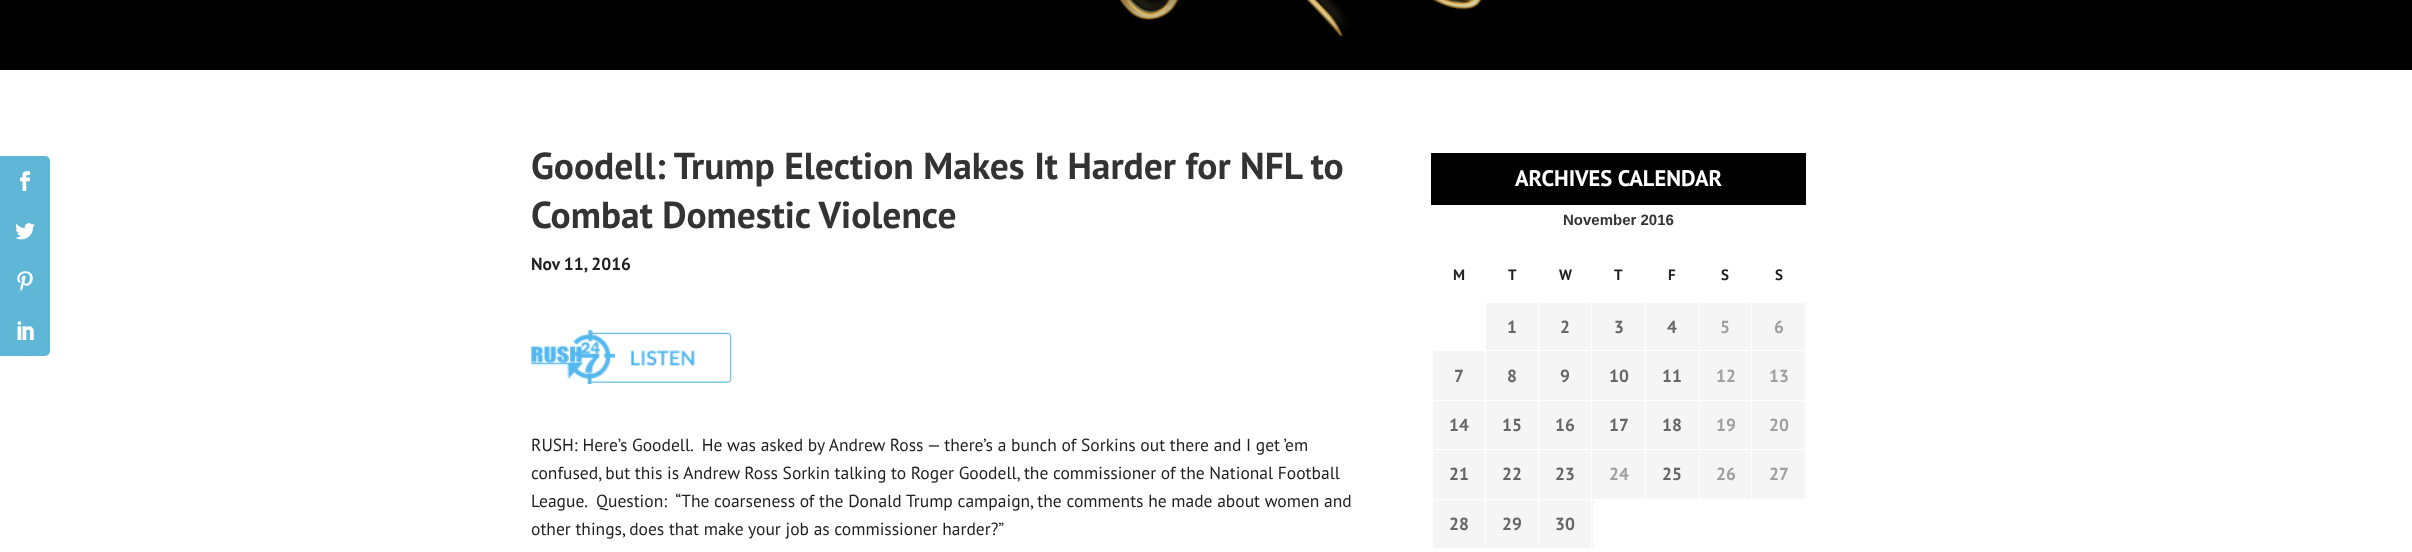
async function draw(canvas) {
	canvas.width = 2412;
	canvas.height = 552;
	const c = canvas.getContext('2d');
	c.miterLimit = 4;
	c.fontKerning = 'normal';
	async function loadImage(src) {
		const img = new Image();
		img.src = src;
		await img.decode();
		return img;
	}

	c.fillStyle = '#fff';
	c.fillRect(0, 0, 2412, 552);
	c.fillStyle = '#60b6d6';
	c.beginPath();
	c.roundRect(0, 156, 50, 50, [0, 5, 0, 0]);
	c.fill();
	c.drawImage(await loadImage('img1.png'), 20, 171, 10, 20);
	c.fillRect(0, 206, 50, 100);
	c.drawImage(await loadImage('img2.png'), 15, 223, 20, 17);
	c.drawImage(await loadImage('img3.png'), 17, 271, 16, 20);
	c.beginPath();
	c.roundRect(0, 306, 50, 50, [0, 0, 5, 0]);
	c.fill();
	c.drawImage(await loadImage('img4.png'), 17, 321, 17, 19);
	c.fillStyle = '#000';
	c.fillRect(0, 0, 2412, 70);
	c.drawImage(await loadImage('img5.png'), 1119, 0, 363, 37);
	c.font = 'bold 37.5px PT Sans';
	c.fillStyle = '#333';
	c.fillText('Goodell: Trump Election Makes It Harder for NFL to', 531, 179);
	c.fillText('Combat Domestic Violence', 531, 228);
	c.font = 'bold 17.5px PT Sans';
	c.fillStyle = '#212121';
	c.fillText('Nov 11, 2016', 531, 270);
	c.drawImage(await loadImage('img6.png'), 531, 330, 201, 54);
	c.font = '17.5px PT Sans';
	for (const [text, x, y] of [
		['RUSH: Here’s Goodell.  He was asked by Andrew Ross — there’s a bunch of Sorkins out there and I get ’em', 531, 451],
		['confused, but this is Andrew Ross Sorkin talking to Roger Goodell, the commissioner of the National Football', 531, 479],
		['League.  Question:  “The coarseness of the Donald Trump campaign, the comments he made about women and', 531, 507],
		['other things, does that make your job as commissioner harder?”', 531, 535],
	]) {
		c.fillText(text, x, y);
	}
	c.fillStyle = '#000';
	c.fillRect(1431, 153, 375, 52);
	c.font = 'bold 22.5px PT Sans';
	c.fillStyle = '#fff';
	c.fillText('ARCHIVES CALENDAR', 1515, 186);
	c.font = 'bold 15px Liberation Sans';
	c.fillStyle = '#333';
	c.fillText('November 2016', 1563, 225);
	c.font = 'bold 15px PT Sans';
	c.fillStyle = '#212121';
	for (const [text, x, y] of [
		['M', 1453, 280],
		['T', 1508, 280],
		['W', 1559, 280],
		['T', 1614, 280],
		['F', 1668, 280],
		['S', 1721, 280],
		['S', 1775, 280],
	]) {
		c.fillText(text, x, y);
	}
	c.fillStyle = '#f5f5f5';
	c.fillRect(1486, 303, 52, 47);
	c.font = 'bold 17.5px PT Sans';
	c.fillStyle = '#666';
	c.fillText('1', 1507, 333);
	c.fillStyle = '#f5f5f5';
	c.fillRect(1539, 303, 106, 47);
	c.fillStyle = '#666';
	c.fillText('2', 1560, 333);
	c.fillText('3', 1614, 333);
	c.fillStyle = '#f5f5f5';
	c.fillRect(1646, 303, 53, 47);
	c.fillStyle = '#666';
	c.fillText('4', 1667, 333);
	c.fillStyle = '#f5f5f5';
	c.fillRect(1700, 303, 105, 47);
	c.fillStyle = '#9f9f9f';
	c.fillText('5', 1720, 333);
	c.fillText('6', 1774, 333);
	c.fillStyle = '#f5f5f5';
	c.fillRect(1433, 351, 52, 49);
	c.fillStyle = '#666';
	c.fillText('7', 1454, 382);
	c.fillStyle = '#f5f5f5';
	c.fillRect(1486, 351, 52, 49);
	c.fillStyle = '#666';
	c.fillText('8', 1507, 382);
	c.fillStyle = '#f5f5f5';
	c.fillRect(1539, 351, 106, 49);
	c.fillStyle = '#666';
	c.fillText('9', 1560, 382);
	c.fillText('10', 1609, 382);
	c.fillStyle = '#f5f5f5';
	c.fillRect(1646, 351, 53, 49);
	c.fillStyle = '#666';
	c.fillText('11', 1662, 382);
	c.fillStyle = '#f5f5f5';
	c.fillRect(1700, 351, 105, 49);
	c.fillStyle = '#9f9f9f';
	c.fillText('12', 1716, 382);
	c.fillText('13', 1769, 382);
	c.fillStyle = '#f5f5f5';
	c.fillRect(1433, 401, 52, 48);
	c.fillStyle = '#666';
	c.fillText('14', 1449, 431);
	c.fillStyle = '#f5f5f5';
	c.fillRect(1486, 401, 52, 48);
	c.fillStyle = '#666';
	c.fillText('15', 1502, 431);
	c.fillStyle = '#f5f5f5';
	c.fillRect(1539, 401, 106, 48);
	c.fillStyle = '#666';
	c.fillText('16', 1555, 431);
	c.fillText('17', 1609, 431);
	c.fillStyle = '#f5f5f5';
	c.fillRect(1646, 401, 53, 48);
	c.fillStyle = '#666';
	c.fillText('18', 1662, 431);
	c.fillStyle = '#f5f5f5';
	c.fillRect(1700, 401, 105, 48);
	c.fillStyle = '#9f9f9f';
	c.fillText('19', 1716, 431);
	c.fillText('20', 1769, 431);
	c.fillStyle = '#f5f5f5';
	c.fillRect(1433, 450, 52, 49);
	c.fillStyle = '#666';
	c.fillText('21', 1449, 480);
	c.fillStyle = '#f5f5f5';
	c.fillRect(1486, 450, 52, 49);
	c.fillStyle = '#666';
	c.fillText('22', 1502, 480);
	c.fillStyle = '#f5f5f5';
	c.fillRect(1539, 450, 106, 49);
	c.fillStyle = '#666';
	c.fillText('23', 1555, 480);
	c.fillStyle = '#9f9f9f';
	c.fillText('24', 1609, 480);
	c.fillStyle = '#f5f5f5';
	c.fillRect(1646, 450, 53, 49);
	c.fillStyle = '#666';
	c.fillText('25', 1662, 480);
	c.fillStyle = '#f5f5f5';
	c.fillRect(1700, 450, 105, 49);
	c.fillStyle = '#9f9f9f';
	c.fillText('26', 1716, 480);
	c.fillStyle = '#fff';
	c.fillRect(1751, 301, 1, 199);
	c.fillStyle = '#9f9f9f';
	c.fillText('27', 1769, 480);
	c.fillStyle = '#f5f5f5';
	c.fillRect(1433, 500, 52, 48);
	c.fillStyle = '#666';
	c.fillText('28', 1449, 530);
	c.fillStyle = '#f5f5f5';
	c.fillRect(1486, 500, 52, 48);
	c.fillStyle = '#666';
	c.fillText('29', 1502, 530);
	c.fillStyle = '#f5f5f5';
	c.fillRect(1539, 500, 54, 48);
	c.fillStyle = '#666';
	c.fillText('30', 1555, 530);
	c.fillStyle = '#fff';
	c.fillRect(1591, 301, 1, 248);
}

draw(document.querySelector('canvas'));
